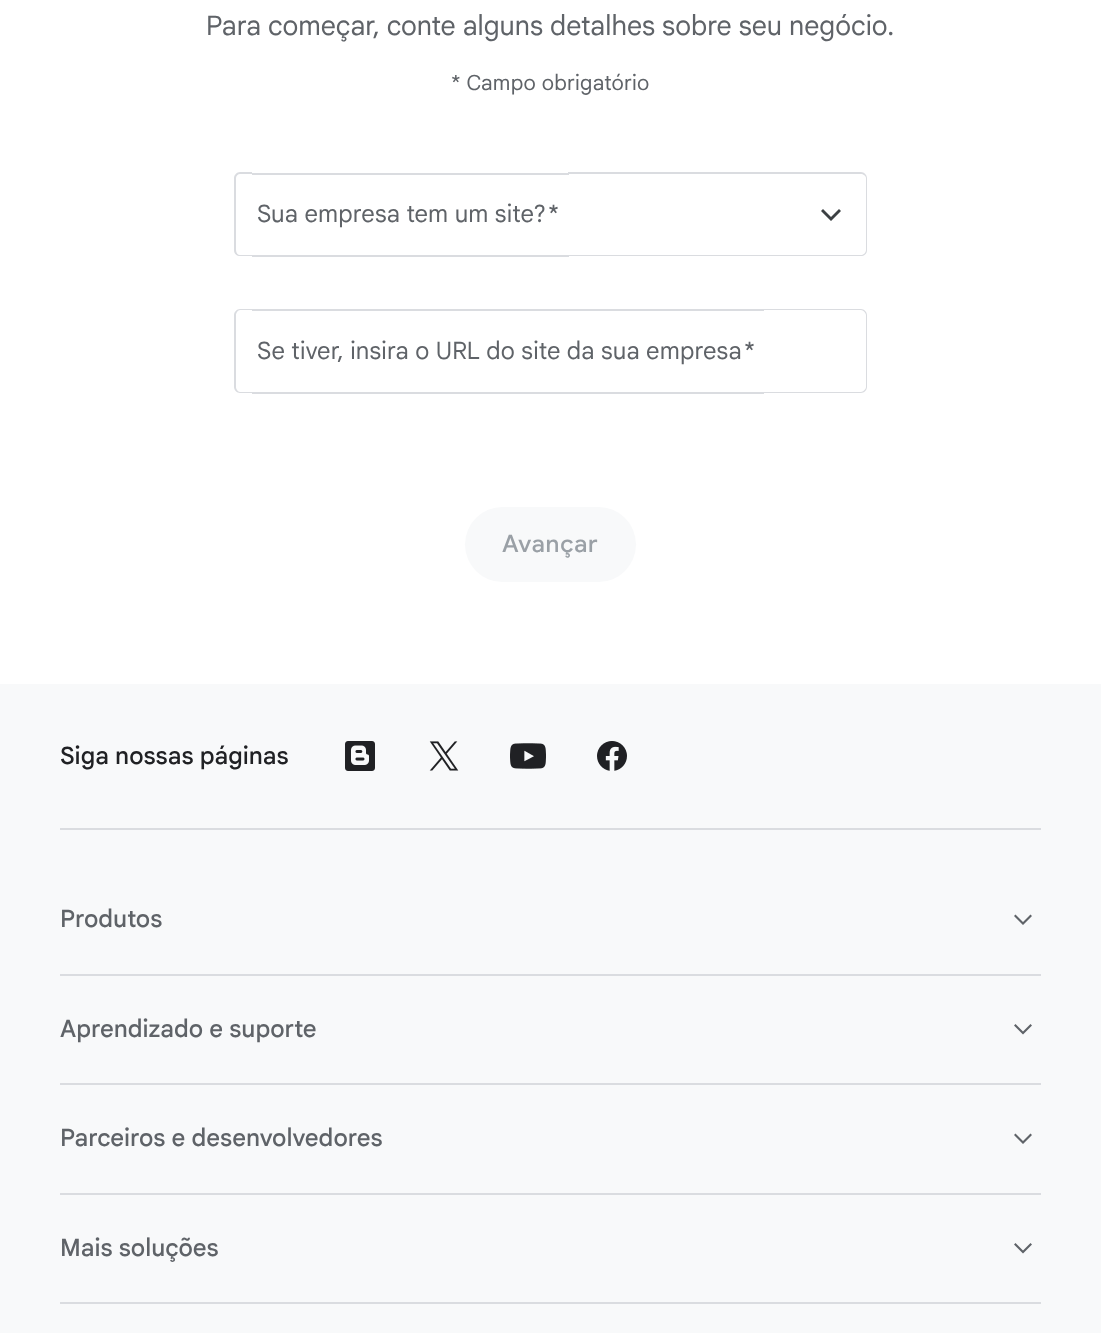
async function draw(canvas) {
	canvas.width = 1101;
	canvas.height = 1333;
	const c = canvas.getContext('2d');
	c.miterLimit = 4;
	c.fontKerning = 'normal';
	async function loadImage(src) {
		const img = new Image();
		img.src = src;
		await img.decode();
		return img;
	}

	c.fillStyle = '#fff';
	c.fillRect(0, 0, 1101, 1333);
	c.font = '27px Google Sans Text';
	c.fillStyle = '#5f6368';
	c.fillText('Para começar, conte alguns detalhes sobre seu negócio.', 206, 35);
	c.letterSpacing = '0.25px';
	c.font = '21px Google Sans Text';
	c.fillText('* Campo obrigatório', 451, 90);
	c.fillStyle = '#dadce0';
	c.beginPath();
	c.moveTo(240, 172);
	c.lineTo(252, 172);
	c.lineTo(252, 256);
	c.lineTo(240, 256);
	c.bezierCurveTo(237, 256, 234, 254, 234, 250);
	c.lineTo(234, 178);
	c.bezierCurveTo(234, 175, 237, 172, 240, 172);
	c.closePath();
	c.moveTo(240, 174);
	c.lineTo(252, 174);
	c.lineTo(252, 255);
	c.lineTo(240, 255);
	c.bezierCurveTo(238, 255, 236, 253, 236, 250);
	c.lineTo(236, 178);
	c.bezierCurveTo(236, 176, 238, 174, 240, 174);
	c.closePath();
	c.fill('evenodd');
	c.fillRect(252, 173, 317, 2);
	c.fillRect(252, 255, 317, 2);
	c.letterSpacing = '0.15px';
	c.font = '24px Google Sans Text';
	c.fillStyle = '#5f6368';
	c.fillText('Sua empresa tem um site?', 257, 222);
	c.fillText('*', 548, 222);
	c.fillStyle = '#3c4043';
	c.beginPath();
	c.moveTo(823, 209);
	c.lineTo(821, 211);
	c.lineTo(831, 221);
	c.lineTo(841, 211);
	c.lineTo(839, 209);
	c.lineTo(831, 217);
	c.fill();
	c.fillStyle = '#dadce0';
	c.beginPath();
	c.moveTo(568, 172);
	c.lineTo(861, 172);
	c.bezierCurveTo(864, 172, 867, 175, 867, 178);
	c.lineTo(867, 250);
	c.bezierCurveTo(867, 254, 864, 256, 861, 256);
	c.lineTo(568, 256);
	c.closePath();
	c.moveTo(568, 174);
	c.lineTo(861, 174);
	c.bezierCurveTo(863, 174, 866, 176, 866, 178);
	c.lineTo(866, 250);
	c.bezierCurveTo(866, 253, 863, 255, 861, 255);
	c.lineTo(568, 255);
	c.closePath();
	c.fill('evenodd');
	c.beginPath();
	c.moveTo(240, 309);
	c.lineTo(252, 309);
	c.lineTo(252, 393);
	c.lineTo(240, 393);
	c.bezierCurveTo(237, 393, 234, 390, 234, 387);
	c.lineTo(234, 315);
	c.bezierCurveTo(234, 312, 237, 309, 240, 309);
	c.closePath();
	c.moveTo(240, 310);
	c.lineTo(252, 310);
	c.lineTo(252, 392);
	c.lineTo(240, 392);
	c.bezierCurveTo(238, 392, 236, 389, 236, 387);
	c.lineTo(236, 315);
	c.bezierCurveTo(236, 313, 238, 310, 240, 310);
	c.closePath();
	c.fill('evenodd');
	c.fillRect(252, 309, 512, 2);
	c.fillRect(252, 392, 512, 2);
	c.fillStyle = '#5f6368';
	c.fillText('Se tiver, insira o URL do site da sua empresa', 257, 359);
	c.fillText('*', 744, 359);
	c.fillStyle = '#dadce0';
	c.beginPath();
	c.moveTo(764, 309);
	c.lineTo(861, 309);
	c.bezierCurveTo(864, 309, 867, 312, 867, 315);
	c.lineTo(867, 387);
	c.bezierCurveTo(867, 390, 864, 393, 861, 393);
	c.lineTo(764, 393);
	c.closePath();
	c.moveTo(764, 310);
	c.lineTo(861, 310);
	c.bezierCurveTo(863, 310, 866, 313, 866, 315);
	c.lineTo(866, 387);
	c.bezierCurveTo(866, 389, 863, 392, 861, 392);
	c.lineTo(764, 392);
	c.closePath();
	c.fill('evenodd');
	c.fillStyle = '#f8f9fa';
	c.beginPath();
	c.roundRect(465, 507, 171, 75, 37.5);
	c.fill();
	c.letterSpacing = '0.75px';
	c.font = '500 24px Google Sans';
	c.fillStyle = '#9aa0a6';
	c.fillText('Avançar', 502, 552);
	c.fillStyle = '#f8f9fa';
	c.fillRect(0, 684, 1101, 649);
	c.fillStyle = '#dadce0';
	c.fillRect(60, 828, 981, 2);
	c.letterSpacing = '0px';
	c.font = '500 24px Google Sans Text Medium';
	c.fillStyle = '#202124';
	c.fillText('Siga nossas páginas', 60, 764);
	c.drawImage(await loadImage('img1.png'), 345, 741, 30, 30);
	c.drawImage(await loadImage('img2.png'), 429, 741, 30, 30);
	c.drawImage(await loadImage('img3.png'), 510, 743, 36, 26);
	c.drawImage(await loadImage('img4.png'), 597, 741, 30, 30);
	c.fillStyle = '#dadce0';
	c.fillRect(60, 1302, 981, 2);
	c.fillStyle = '#5f6368';
	c.fillText('Produtos', 60, 927);
	c.beginPath();
	c.moveTo(1015.5, 914.5);
	c.lineTo(1014, 916);
	c.lineTo(1023, 925);
	c.lineTo(1032, 916);
	c.lineTo(1030.5, 914.5);
	c.lineTo(1023, 922);
	c.fill();
	c.fillStyle = '#dadce0';
	c.fillRect(60, 974, 981, 2);
	c.fillStyle = '#5f6368';
	c.fillText('Aprendizado e suporte', 60, 1037);
	c.beginPath();
	c.moveTo(1015.5, 1024);
	c.lineTo(1014, 1025.5);
	c.lineTo(1023, 1034.5);
	c.lineTo(1032, 1025.5);
	c.lineTo(1030.5, 1024);
	c.lineTo(1023, 1031.5);
	c.fill();
	c.fillStyle = '#dadce0';
	c.fillRect(60, 1083, 981, 2);
	c.fillStyle = '#5f6368';
	c.fillText('Parceiros e desenvolvedores', 60, 1146);
	c.beginPath();
	c.moveTo(1015.5, 1133.5);
	c.lineTo(1014, 1135);
	c.lineTo(1023, 1144);
	c.lineTo(1032, 1135);
	c.lineTo(1030.5, 1133.5);
	c.lineTo(1023, 1141);
	c.fill();
	c.fillStyle = '#dadce0';
	c.fillRect(60, 1193, 981, 2);
	c.fillStyle = '#5f6368';
	c.fillText('Mais soluções', 60, 1256);
	c.beginPath();
	c.moveTo(1015.5, 1243);
	c.lineTo(1014, 1244.5);
	c.lineTo(1023, 1253.5);
	c.lineTo(1032, 1244.5);
	c.lineTo(1030.5, 1243);
	c.lineTo(1023, 1250.5);
	c.fill();
}

draw(document.querySelector('canvas'));
